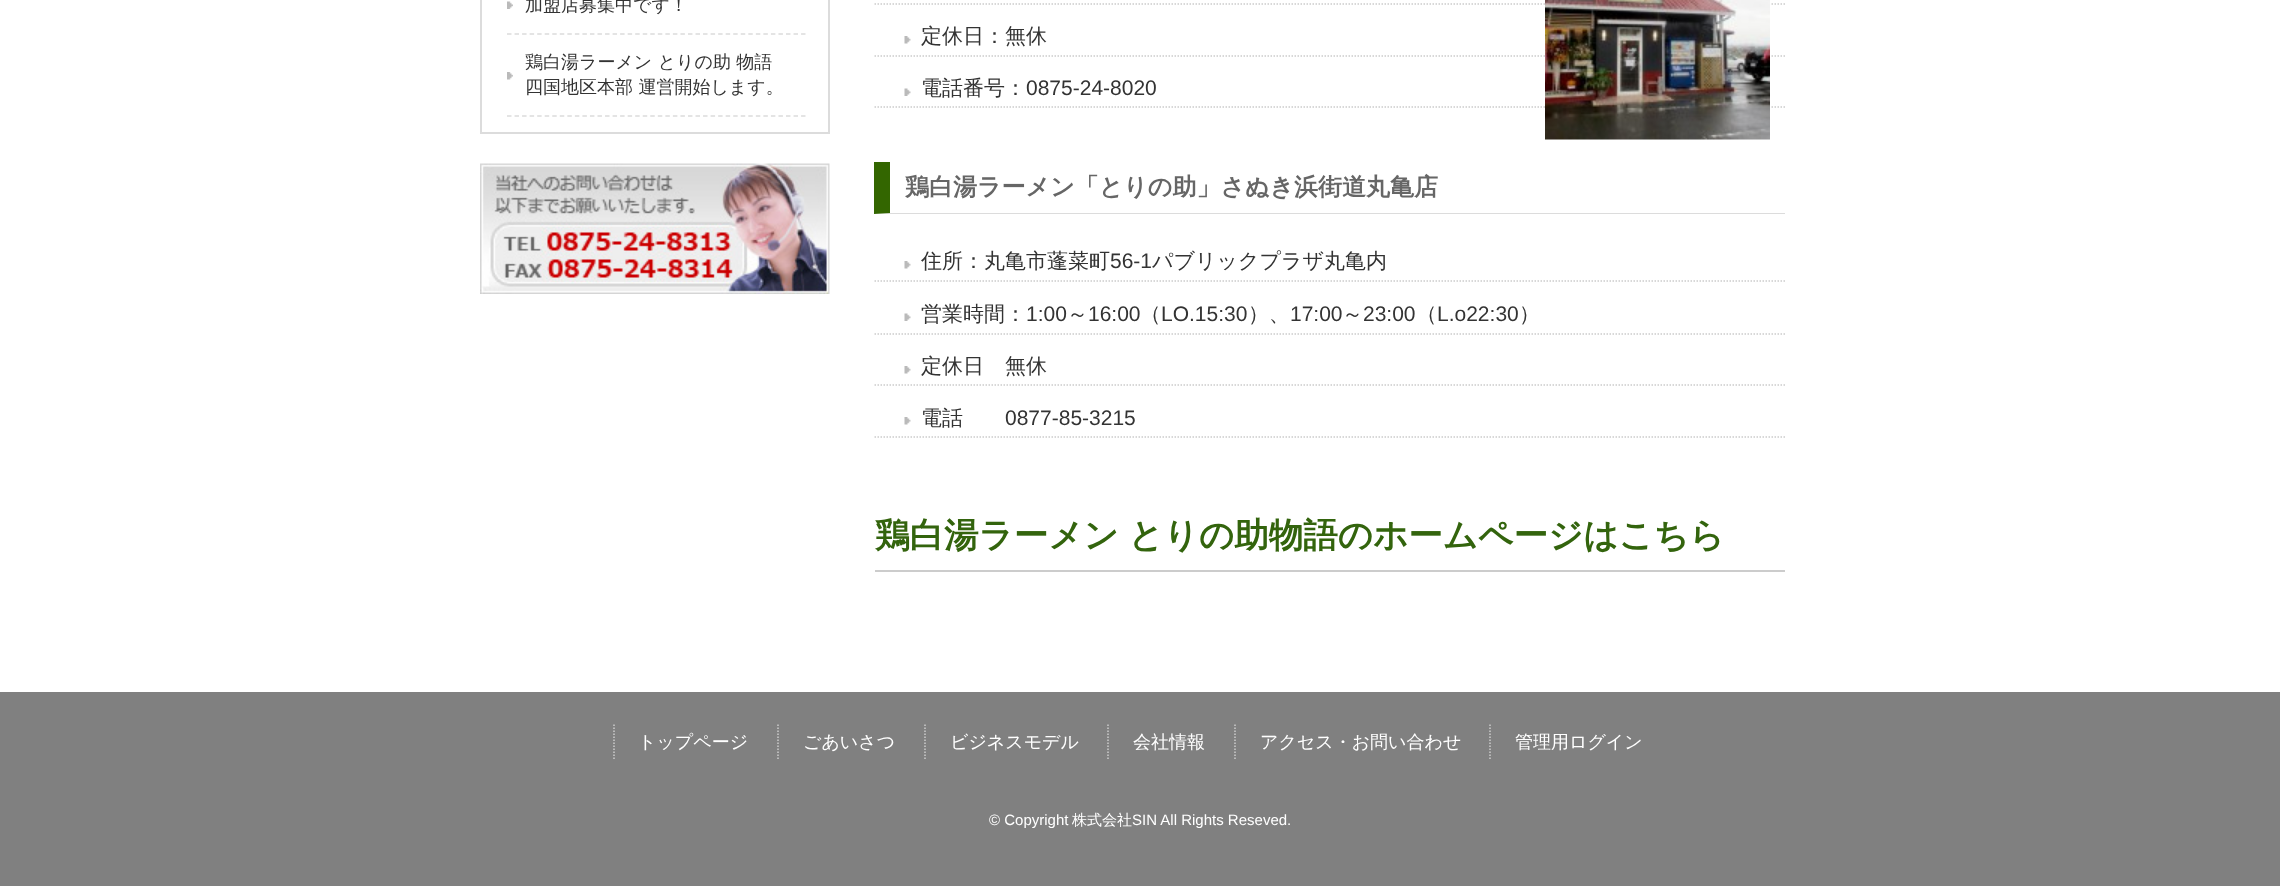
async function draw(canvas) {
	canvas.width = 2280;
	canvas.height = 886;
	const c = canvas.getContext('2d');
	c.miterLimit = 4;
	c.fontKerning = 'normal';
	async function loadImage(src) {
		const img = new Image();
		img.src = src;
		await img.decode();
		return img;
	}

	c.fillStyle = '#fff';
	c.fillRect(0, 0, 2280, 886);
	c.strokeStyle = '#dcdcdc';
	c.lineWidth = 2;
	c.strokeRect(481, -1, 348, 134);
	c.beginPath();
	c.moveTo(507, 34);
	c.lineTo(805.5, 34);
	c.lineWidth = 1.5;
	c.setLineDash([4.5, 3.04]);
	c.stroke();
	c.drawImage(await loadImage('img1.png'), 507, 1, 6, 8);
	c.font = '500 18px WenQuanYi Zen Hei';
	c.fillStyle = '#333';
	c.fillText('加盟店募集中です！', 525, 11);
	c.beginPath();
	c.moveTo(507, 116);
	c.lineTo(805.5, 116);
	c.stroke();
	c.drawImage(await loadImage('img2.png'), 507, 72, 6, 8);
	c.fillText('鶏白湯ラーメン とりの助 物語', 525, 68);
	c.fillText('四国地区本部 運営開始します。', 525, 93);
	c.drawImage(await loadImage('img3.png'), 480, 163, 350, 131);
	c.beginPath();
	c.moveTo(874.5, 4);
	c.lineTo(1785, 4);
	c.strokeStyle = '#ccc';
	c.setLineDash([1.5, 1.5]);
	c.stroke();
	c.beginPath();
	c.moveTo(874.5, 56);
	c.lineTo(1785, 56);
	c.stroke();
	c.beginPath();
	c.moveTo(874.5, 107);
	c.lineTo(1785, 107);
	c.stroke();
	c.drawImage(await loadImage('img4.png'), 1545, 0, 225, 140);
	c.drawImage(await loadImage('img5.png'), 904, 36, 7, 8);
	c.font = '500 21px WenQuanYi Zen Hei';
	c.fillText('定休日：無休', 921, 43);
	c.drawImage(await loadImage('img6.png'), 904, 88, 7, 8);
	c.fillText('電話番号：', 921, 95);
	c.font = '21px Liberation Sans';
	c.fillText('0875-24-8020', 1026, 95);
	c.fillStyle = '#dcdcdc';
	c.beginPath();
	c.moveTo(1785, 214);
	c.lineTo(874, 214);
	c.lineTo(890, 213);
	c.lineTo(1785, 213);
	c.closePath();
	c.fill();
	c.fillStyle = '#360';
	c.beginPath();
	c.moveTo(874, 214);
	c.lineTo(874, 162);
	c.lineTo(890, 162);
	c.lineTo(890, 213);
	c.closePath();
	c.fill();
	c.font = 'bold 24px WenQuanYi Zen Hei';
	c.fillStyle = '#666';
	c.fillText('鶏白湯ラーメン「とりの助」さぬき浜街道丸亀店', 905, 195);
	c.beginPath();
	c.moveTo(874.5, 281);
	c.lineTo(1785, 281);
	c.stroke();
	c.drawImage(await loadImage('img5.png'), 904, 261, 7, 8);
	c.font = '500 21px WenQuanYi Zen Hei';
	c.fillStyle = '#333';
	c.fillText('住所：丸亀市蓬菜町', 921, 268);
	c.font = '21px Liberation Sans';
	c.fillText('56-1', 1110, 268);
	c.font = '500 21px WenQuanYi Zen Hei';
	c.fillText('パブリックプラザ丸亀内', 1152, 268);
	c.beginPath();
	c.moveTo(874.5, 334);
	c.lineTo(1785, 334);
	c.stroke();
	c.drawImage(await loadImage('img6.png'), 904, 313, 7, 8);
	c.fillText('営業時間：', 921, 321);
	c.font = '21px Liberation Sans';
	c.fillText('1:00', 1026, 321);
	c.font = '500 21px WenQuanYi Zen Hei';
	c.fillText('～', 1067, 321);
	c.font = '21px Liberation Sans';
	c.fillText('16:00', 1088, 321);
	c.font = '500 21px WenQuanYi Zen Hei';
	c.fillText('（', 1140, 321);
	c.font = '21px Liberation Sans';
	c.fillText('LO.15:30', 1161, 321);
	c.font = '500 21px WenQuanYi Zen Hei';
	c.fillText('）、', 1248, 321);
	c.font = '21px Liberation Sans';
	c.fillText('17:00', 1290, 321);
	c.font = '500 21px WenQuanYi Zen Hei';
	c.fillText('～', 1342, 321);
	c.font = '21px Liberation Sans';
	c.fillText('23:00', 1363, 321);
	c.font = '500 21px WenQuanYi Zen Hei';
	c.fillText('（', 1416, 321);
	c.font = '21px Liberation Sans';
	c.fillText('L.o22:30', 1437, 321);
	c.font = '500 21px WenQuanYi Zen Hei';
	c.fillText('）', 1519, 321);
	c.beginPath();
	c.moveTo(874.5, 385);
	c.lineTo(1785, 385);
	c.stroke();
	c.drawImage(await loadImage('img5.png'), 904, 366, 7, 8);
	c.fillText('定休日　無休', 921, 373);
	c.beginPath();
	c.moveTo(874.5, 437);
	c.lineTo(1785, 437);
	c.stroke();
	c.drawImage(await loadImage('img5.png'), 904, 417, 7, 8);
	c.fillText('電話', 921, 425);
	c.font = '21px Liberation Sans';
	c.fillText('0877-85-3215', 1005, 425);
	c.fillStyle = '#ccc';
	c.fillRect(875, 570, 910, 2);
	c.wordSpacing = '-1px';
	c.font = 'bold 34.5px WenQuanYi Zen Hei';
	c.fillStyle = '#33640d';
	c.fillText('鶏白湯ラーメン とりの助物語のホームページはこちら', 875, 547);
	c.fillStyle = '#808080';
	c.fillRect(0, 692, 2280, 194);
	c.wordSpacing = '0px';
	c.font = '500 18px WenQuanYi Zen Hei';
	c.fillStyle = '#fff';
	c.fillText('トップページ', 638, 748);
	c.beginPath();
	c.moveTo(614, 724.5);
	c.lineTo(614, 760.5);
	c.stroke();
	c.fillText('ごあいさつ', 803, 748);
	c.beginPath();
	c.moveTo(778, 724.5);
	c.lineTo(778, 760.5);
	c.stroke();
	c.fillText('ビジネスモデル', 950, 748);
	c.beginPath();
	c.moveTo(925, 724.5);
	c.lineTo(925, 760.5);
	c.stroke();
	c.fillText('会社情報', 1133, 748);
	c.beginPath();
	c.moveTo(1108, 724.5);
	c.lineTo(1108, 760.5);
	c.stroke();
	c.fillText('アクセス・お問い合わせ', 1260, 748);
	c.beginPath();
	c.moveTo(1235, 724.5);
	c.lineTo(1235, 760.5);
	c.stroke();
	c.fillText('管理用ログイン', 1515, 748);
	c.beginPath();
	c.moveTo(1490, 724.5);
	c.lineTo(1490, 760.5);
	c.stroke();
	c.font = '15px Liberation Sans';
	c.fillText('© Copyright', 989, 825);
	c.font = '500 15px WenQuanYi Zen Hei';
	c.fillText('株式会社', 1072, 825);
	c.font = '15px Liberation Sans';
	c.fillText('SIN All Rights Reseved.', 1132, 825);
}

draw(document.querySelector('canvas'));
